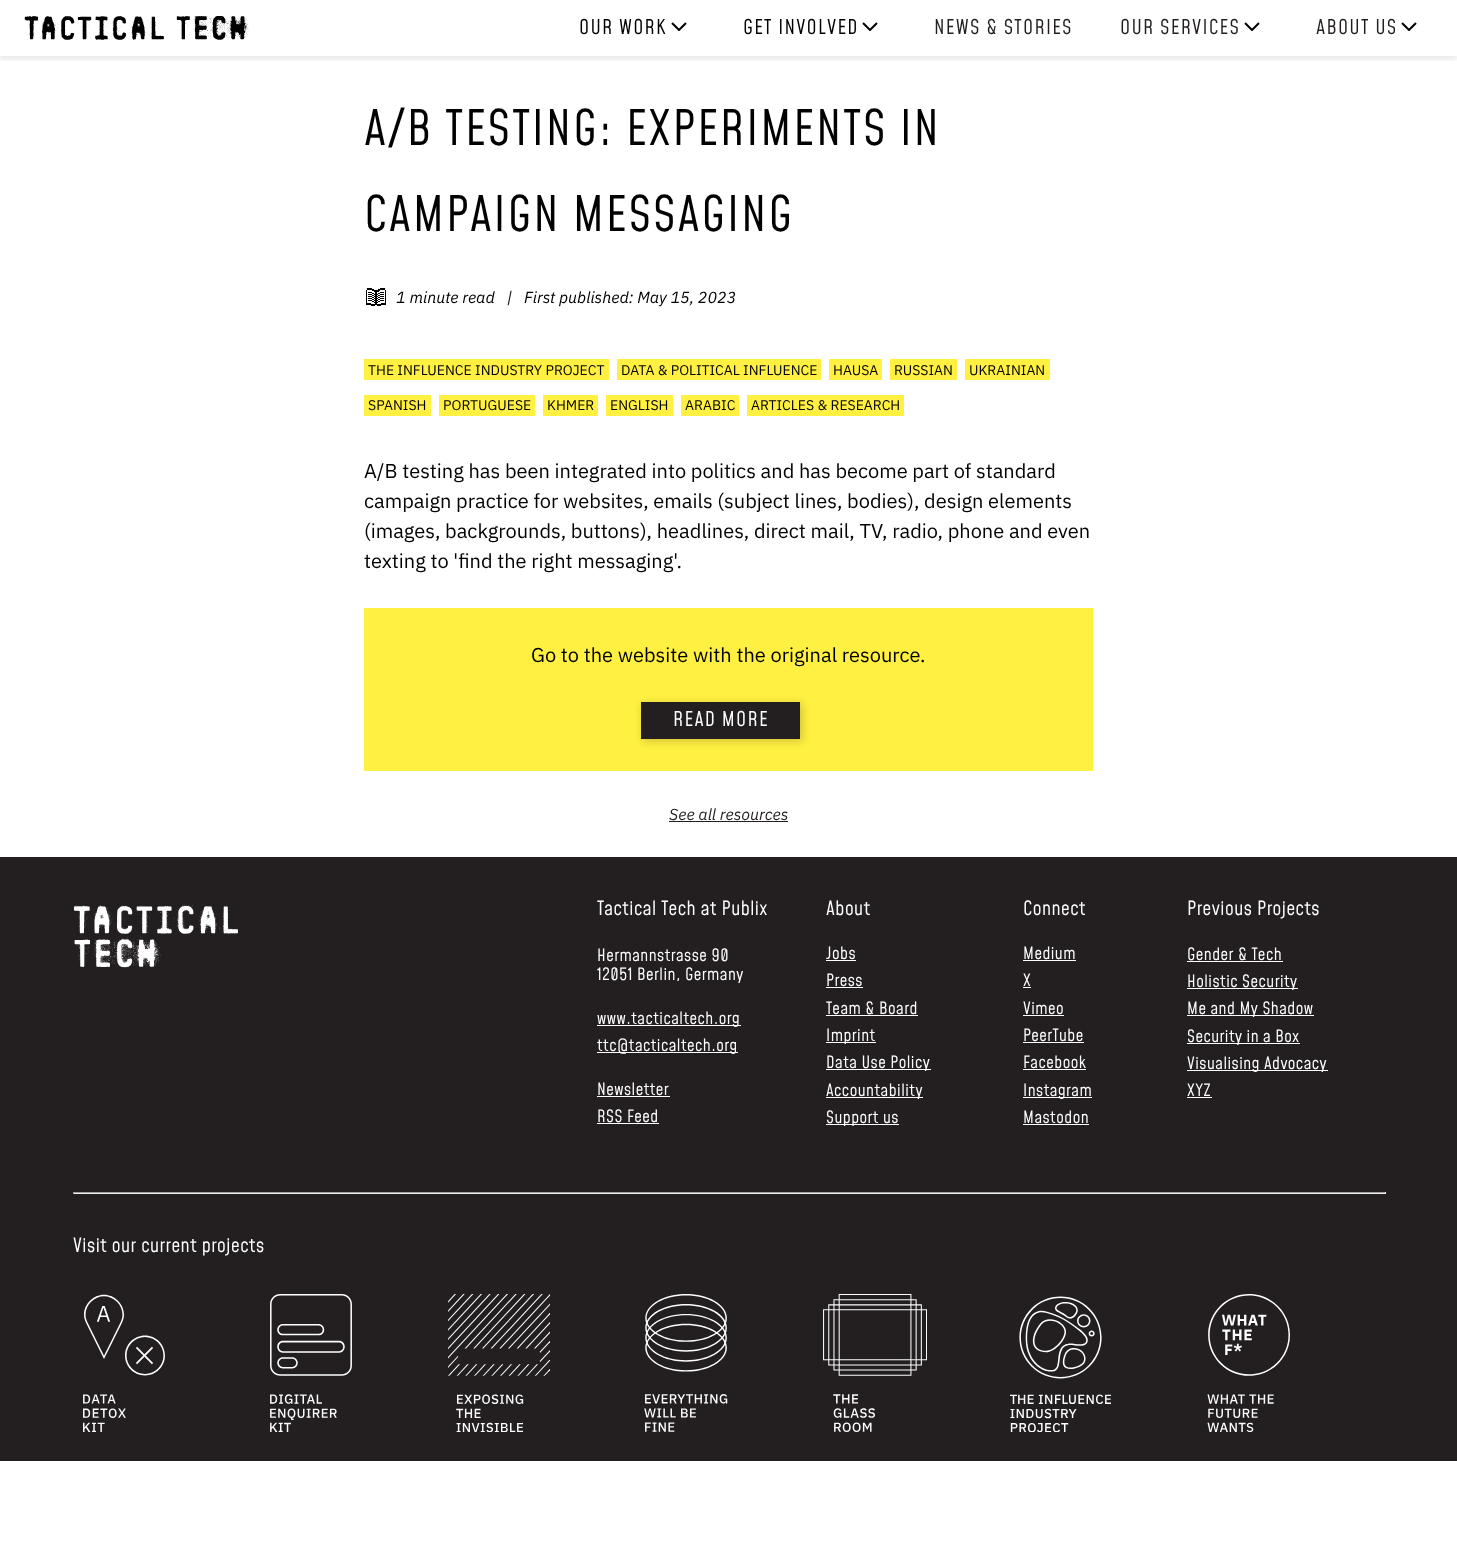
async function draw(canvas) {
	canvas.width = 1457;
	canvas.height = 1554;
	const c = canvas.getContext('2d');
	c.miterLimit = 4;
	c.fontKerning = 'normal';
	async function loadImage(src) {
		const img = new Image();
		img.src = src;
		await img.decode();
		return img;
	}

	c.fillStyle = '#fff';
	c.fillRect(0, 0, 1457, 1554);
	c.save();
	c.beginPath();
	c.rect(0, 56, 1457, 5);
	c.clip();
	c.fillStyle = '#00000014';
	c.filter = 'blur(2px)';
	c.beginPath();
	c.rect(0, 4, 1457, 56);
	c.fill();
	c.filter = 'none';
	c.restore();
	c.drawImage(await loadImage('img1.png'), 24, 16, 226, 24);
	c.letterSpacing = '1.25px';
	c.font = '20px Mohave';
	c.fillStyle = '#000';
	c.fillText('OUR WORK', 579, 34);
	c.drawImage(await loadImage('img2.png'), 671, 22, 16, 9);
	c.fillText('GET INVOLVED', 743, 34);
	c.drawImage(await loadImage('img2.png'), 862, 22, 16, 9);
	c.fillStyle = '#231f20';
	c.fillText('NEWS & STORIES', 934, 34);
	c.fillText('OUR SERVICES', 1120, 34);
	c.drawImage(await loadImage('img2.png'), 1244, 22, 16, 9);
	c.fillText('ABOUT US', 1316, 34);
	c.drawImage(await loadImage('img2.png'), 1401, 22, 16, 9);
	c.letterSpacing = '1.9px';
	c.font = '48px Mohave';
	c.fillStyle = '#000';
	c.fillText('A/B TESTING: EXPERIMENTS IN', 364, 145);
	c.fillText('CAMPAIGN MESSAGING', 364, 231);
	c.drawImage(await loadImage('img3.png'), 366, 288, 20, 18);
	c.letterSpacing = '0px';
	c.font = 'italic 16px IBM Plex Sans';
	for (const [text, x, y] of [
		['1 minute read', 396, 303],
		['|', 507, 303],
		['First published: May 15, 2023', 524, 303],
	]) {
		c.fillText(text, x, y);
	}
	c.fillStyle = '#fff042';
	c.fillRect(364, 359, 245, 21);
	c.font = '14px IBM Plex Sans';
	c.fillStyle = '#000';
	c.fillText('THE INFLUENCE INDUSTRY PROJECT', 368, 375);
	c.fillStyle = '#fff042';
	c.fillRect(617, 359, 204, 21);
	c.fillStyle = '#000';
	c.fillText('DATA & POLITICAL INFLUENCE', 621, 375);
	c.fillStyle = '#fff042';
	c.fillRect(829, 359, 53, 21);
	c.fillStyle = '#000';
	c.fillText('HAUSA', 833, 375);
	c.fillStyle = '#fff042';
	c.fillRect(890, 359, 67, 21);
	c.fillStyle = '#000';
	c.fillText('RUSSIAN', 894, 375);
	c.fillStyle = '#fff042';
	c.fillRect(965, 359, 85, 21);
	c.fillStyle = '#000';
	c.fillText('UKRAINIAN', 969, 375);
	c.fillStyle = '#fff042';
	c.fillRect(364, 395, 67, 21);
	c.fillStyle = '#000';
	c.fillText('SPANISH', 368, 410);
	c.fillStyle = '#fff042';
	c.fillRect(439, 395, 96, 21);
	c.fillStyle = '#000';
	c.fillText('PORTUGUESE', 443, 410);
	c.fillStyle = '#fff042';
	c.fillRect(543, 395, 55, 21);
	c.fillStyle = '#000';
	c.fillText('KHMER', 547, 410);
	c.fillStyle = '#fff042';
	c.fillRect(606, 395, 67, 21);
	c.fillStyle = '#000';
	c.fillText('ENGLISH', 610, 410);
	c.fillStyle = '#fff042';
	c.fillRect(681, 395, 58, 21);
	c.fillStyle = '#000';
	c.fillText('ARABIC', 685, 410);
	c.fillStyle = '#fff042';
	c.fillRect(747, 395, 157, 21);
	c.fillStyle = '#000';
	c.fillText('ARTICLES & RESEARCH', 751, 410);
	c.font = '20px IBM Plex Sans';
	for (const [text, x, y] of [
		['A/B testing has been integrated into politics and has become part of standard', 364, 478],
		['campaign practice for websites, emails (subject lines, bodies), design elements', 364, 508],
		['(images, backgrounds, buttons), headlines, direct mail, TV, radio, phone and even', 364, 538],
		['texting to \'find the right messaging\'.', 364, 568],
	]) {
		c.fillText(text, x, y);
	}
	c.fillStyle = '#fff042';
	c.fillRect(364, 608, 729, 163);
	c.fillStyle = '#000';
	c.fillText('Go to the website with the original resource.', 531, 662);
	c.fillStyle = '#00000033';
	c.filter = 'blur(4px)';
	c.beginPath();
	c.rect(643, 704, 159, 37);
	c.fill();
	c.filter = 'none';
	c.fillStyle = '#231f20';
	c.fillRect(641, 702, 159, 37);
	c.letterSpacing = '1.25px';
	c.font = '20px Mohave';
	c.fillStyle = '#fff';
	c.fillText('READ MORE', 673, 726);
	c.letterSpacing = '0px';
	c.font = 'italic 16px IBM Plex Sans';
	c.fillStyle = '#231f20';
	c.fillText('See all resources', 669, 820);
	c.fillRect(669, 821, 119, 1);
	c.fillRect(0, 857, 1457, 604);
	c.drawImage(await loadImage('img4.png'), 73, 903, 165, 65);
	c.letterSpacing = '0.5px';
	c.font = '19.25px Mohave';
	c.fillStyle = '#fff';
	c.fillText('Tactical Tech at Publix', 597, 915);
	c.font = '16.75px Mohave';
	c.fillText('Hermannstrasse 90', 597, 961);
	c.fillText('12051 Berlin, Germany', 597, 980);
	c.fillRect(597, 1025, 144, 1);
	c.fillText('www.tacticaltech.org', 597, 1024);
	c.fillRect(597, 1052, 141, 1);
	c.fillText('ttc@tacticaltech.org', 597, 1051);
	c.fillText('Newsletter', 597, 1095);
	c.fillRect(597, 1096, 73, 1);
	c.fillText('RSS Feed', 597, 1122);
	c.fillRect(597, 1123, 62, 1);
	c.font = '19.25px Mohave';
	c.fillText('About', 826, 915);
	c.font = '16.75px Mohave';
	c.fillText('Jobs', 826, 959);
	c.fillRect(826, 960, 30, 1);
	c.fillText('Press', 826, 986);
	c.fillRect(826, 987, 37, 1);
	c.fillText('Team & Board', 826, 1014);
	c.fillRect(826, 1015, 92, 1);
	c.fillRect(826, 1042, 50, 1);
	c.fillText('Imprint', 826, 1041);
	c.fillRect(826, 1069, 105, 1);
	c.fillText('Data Use Policy', 826, 1068);
	c.fillRect(826, 1097, 97, 1);
	c.fillText('Accountability', 826, 1096);
	c.fillRect(826, 1124, 73, 1);
	c.fillText('Support us', 826, 1123);
	c.font = '19.25px Mohave';
	c.fillText('Connect', 1023, 915);
	c.font = '16.75px Mohave';
	c.fillText('Medium', 1023, 959);
	c.fillRect(1023, 960, 53, 1);
	c.fillText('X', 1023, 986);
	c.fillRect(1023, 987, 8, 1);
	c.fillText('Vimeo', 1023, 1014);
	c.fillRect(1023, 1015, 41, 1);
	c.fillText('PeerTube', 1023, 1041);
	c.fillRect(1023, 1042, 61, 1);
	c.fillText('Facebook', 1023, 1068);
	c.fillRect(1023, 1069, 63, 1);
	c.fillRect(1023, 1097, 69, 1);
	c.fillText('Instagram', 1023, 1096);
	c.fillText('Mastodon', 1023, 1123);
	c.fillRect(1023, 1124, 66, 1);
	c.font = '19.25px Mohave';
	c.fillText('Previous Projects', 1187, 915);
	c.font = '16.75px Mohave';
	c.fillText('Gender & Tech', 1187, 960);
	c.fillRect(1187, 961, 96, 1);
	c.fillRect(1187, 988, 111, 1);
	c.fillText('Holistic Security', 1187, 987);
	c.fillRect(1187, 1015, 127, 1);
	c.fillText('Me and My Shadow', 1187, 1014);
	c.fillRect(1187, 1043, 113, 1);
	c.fillText('Security in a Box', 1187, 1042);
	c.fillRect(1187, 1070, 141, 1);
	c.fillText('Visualising Advocacy', 1187, 1069);
	c.fillText('XYZ', 1187, 1096);
	for (const [x, y, w, h, color] of [
		[1187, 1097, 25, 1, '#fff'],
		[73, 1192, 1313, 1, '#9f9f9f'],
		[1385, 1192, 1, 2, '#eee'],
		[73, 1193, 1313, 1, '#eee'],
		[73, 1192, 1, 2, '#9f9f9f'],
	]) {
		c.fillStyle = color;
		c.fillRect(x, y, w, h);
	}
	c.font = '19.25px Mohave';
	c.fillStyle = '#fff';
	c.fillText('Visit our current projects', 73, 1252);
	c.drawImage(await loadImage('img5.png'), 83, 1294, 82, 138);
	c.drawImage(await loadImage('img6.png'), 270, 1294, 82, 138);
	c.drawImage(await loadImage('img7.png'), 448, 1294, 102, 138);
	c.drawImage(await loadImage('img8.png'), 644, 1294, 84, 138);
	c.drawImage(await loadImage('img9.png'), 823, 1294, 104, 138);
	c.drawImage(await loadImage('img10.png'), 1010, 1296, 101, 136);
	c.drawImage(await loadImage('img11.png'), 1207, 1294, 83, 138);
}

draw(document.querySelector('canvas'));
